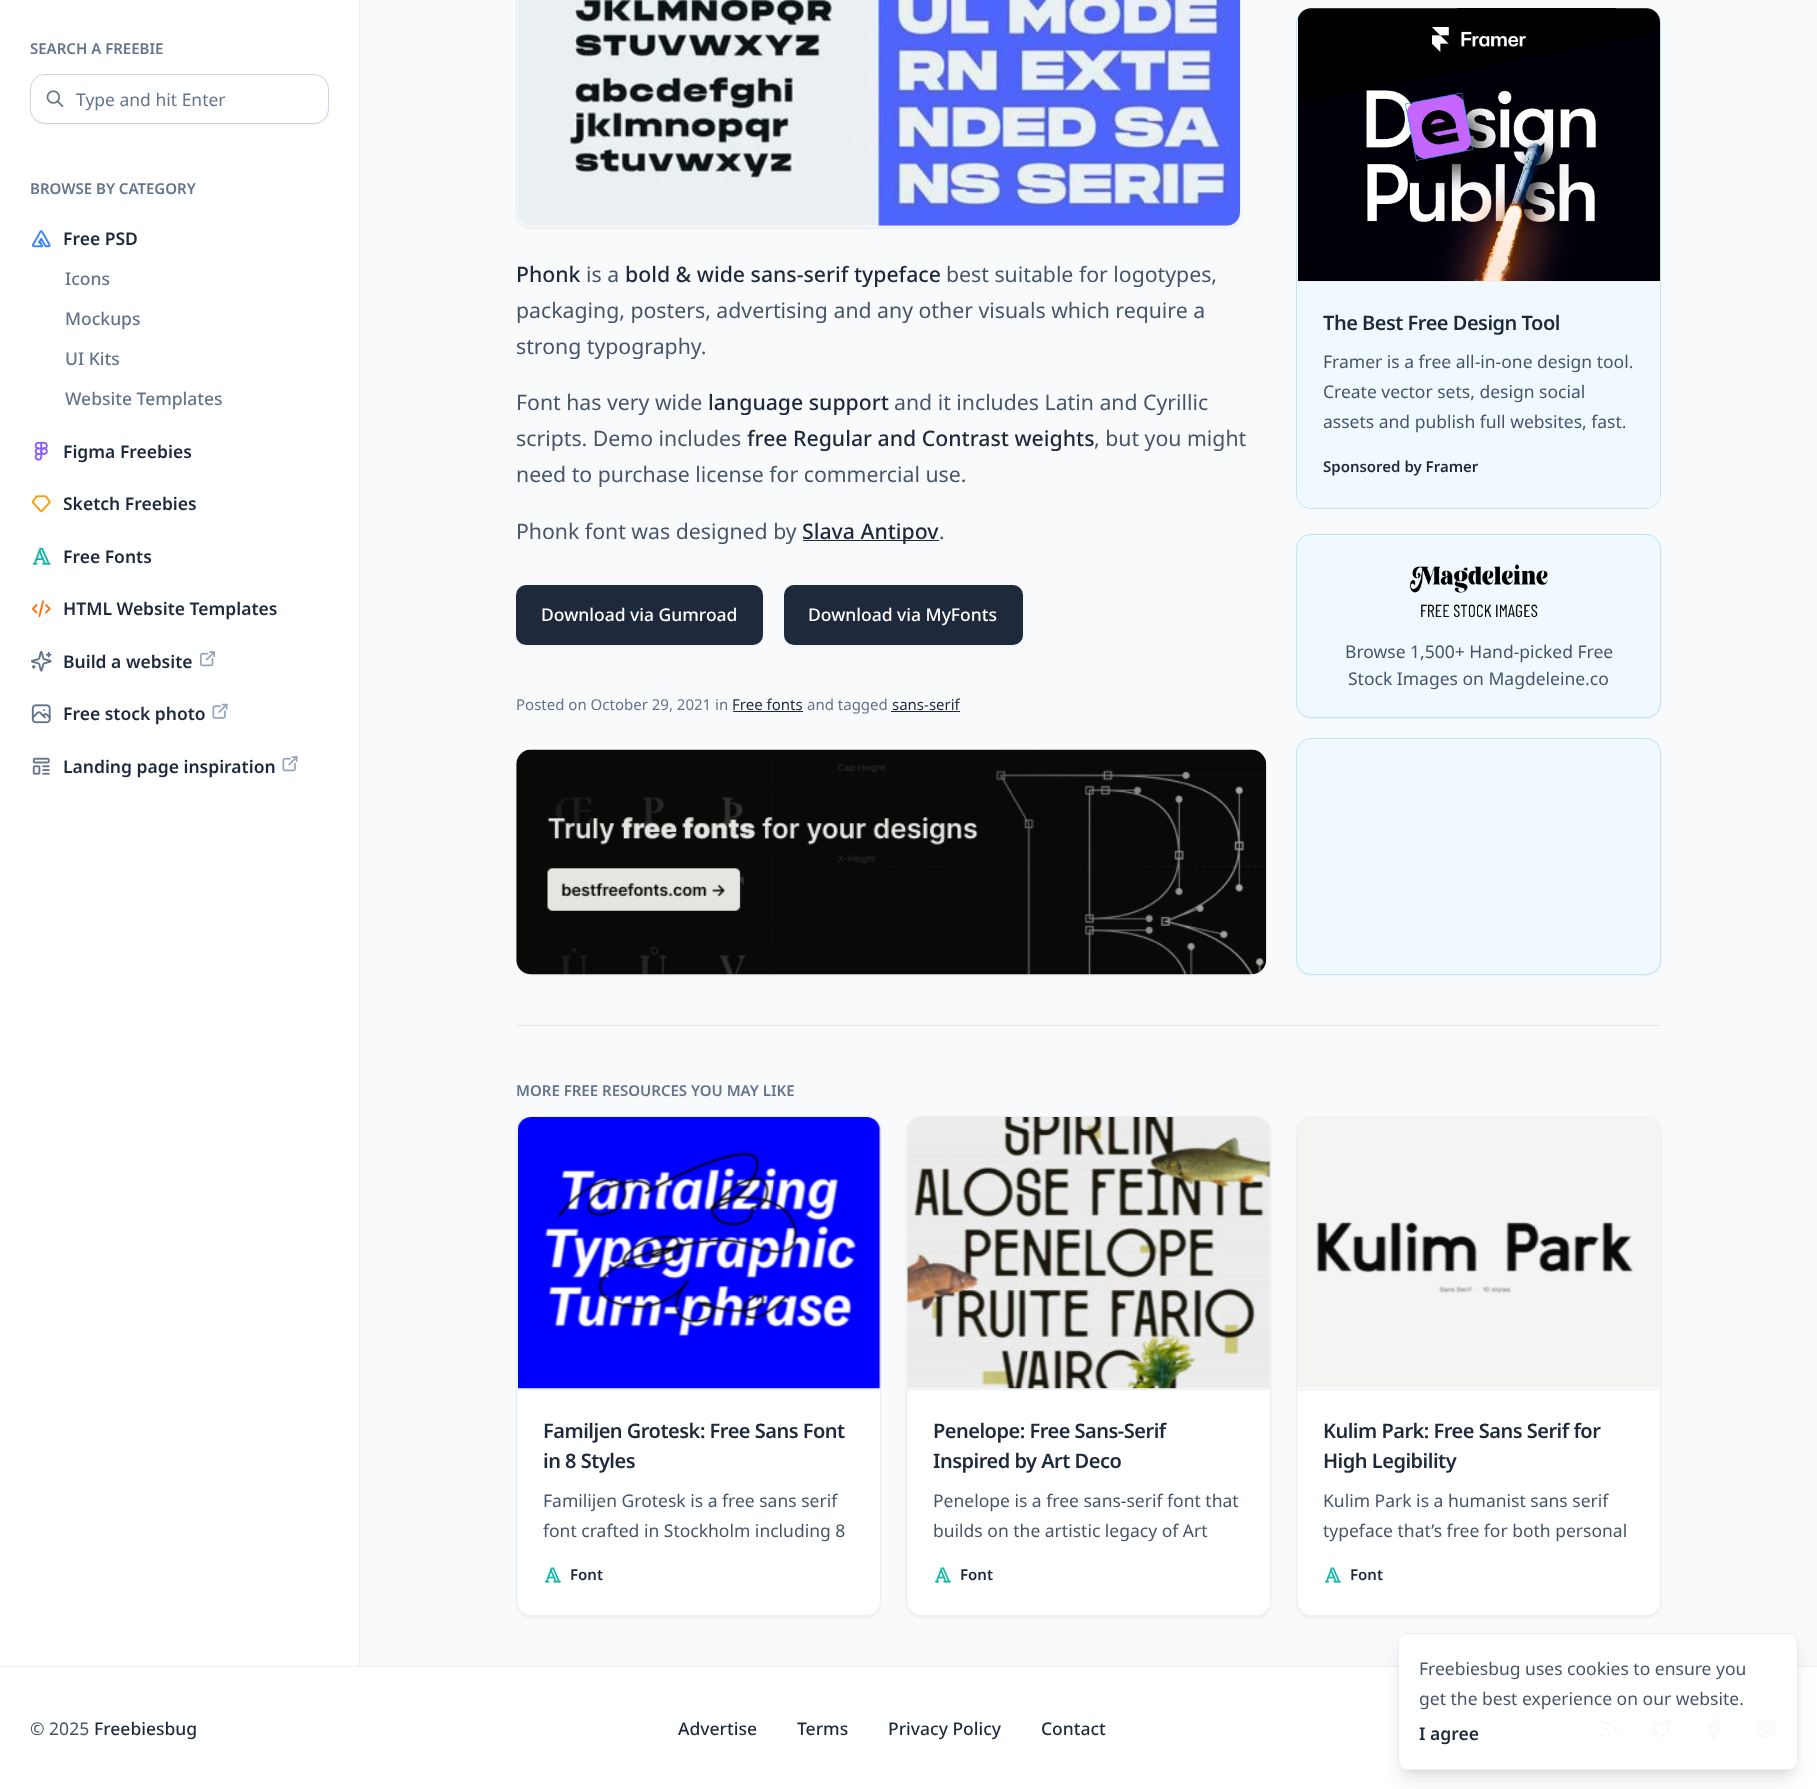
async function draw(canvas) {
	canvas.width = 1817;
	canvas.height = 1789;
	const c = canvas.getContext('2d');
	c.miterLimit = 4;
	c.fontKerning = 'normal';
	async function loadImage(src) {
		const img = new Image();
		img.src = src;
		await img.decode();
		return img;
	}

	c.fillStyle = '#fff';
	c.fillRect(0, 0, 1817, 1789);
	c.fillStyle = '#ebeff3';
	c.fillRect(359, 0, 1, 1666);
	c.font = '600 15px Noto Sans';
	c.fillStyle = '#64748b';
	c.fillText('SEARCH A FREEBIE', 30, 54);
	c.fillStyle = '#0000000d';
	c.filter = 'blur(1px)';
	c.beginPath();
	c.roundRect(30, 75, 299, 50, 15);
	c.fill();
	c.filter = 'none';
	c.fillStyle = '#fff';
	c.beginPath();
	c.roundRect(30.5, 74.5, 298, 49, 14.5);
	c.fill();
	c.strokeStyle = '#cbd5e1';
	c.stroke();
	c.drawImage(await loadImage('img1.png'), 46, 90, 18, 18);
	c.font = '17.5px Noto Sans';
	c.fillStyle = '#64748b';
	c.fillText('Type and hit Enter', 76, 106);
	c.font = '600 15px Noto Sans';
	c.fillText('BROWSE BY CATEGORY', 30, 194);
	c.drawImage(await loadImage('img2.png'), 31, 230, 20, 18);
	c.font = '600 17.5px Noto Sans';
	c.fillStyle = '#1e293b';
	c.fillText('Free PSD', 63, 245);
	c.font = '500 17.5px Noto Sans';
	c.fillStyle = '#64748b';
	for (const [text, x, y] of [
		['Icons', 65, 285],
		['Mockups', 65, 325],
		['UI Kits', 65, 365],
		['Website Templates', 65, 405],
	]) {
		c.fillText(text, x, y);
	}
	c.drawImage(await loadImage('img3.png'), 34, 441, 14, 20);
	c.font = '600 17.5px Noto Sans';
	c.fillStyle = '#1e293b';
	c.fillText('Figma Freebies', 63, 458);
	c.drawImage(await loadImage('img4.png'), 31, 495, 20, 18);
	c.fillText('Sketch Freebies', 63, 510);
	c.drawImage(await loadImage('img5.png'), 32, 547, 19, 18);
	c.fillText('Free Fonts', 63, 563);
	c.drawImage(await loadImage('img6.png'), 31, 600, 20, 18);
	c.fillText('HTML Website Templates', 63, 615);
	c.drawImage(await loadImage('img7.png'), 31, 651, 21, 21);
	c.fillText('Build a website', 63, 668);
	c.drawImage(await loadImage('img8.png'), 200, 651, 15, 16);
	c.drawImage(await loadImage('img9.png'), 31, 704, 20, 20);
	c.fillText('Free stock photo', 63, 720);
	c.drawImage(await loadImage('img10.png'), 212, 703, 16, 16);
	c.drawImage(await loadImage('img11.png'), 32, 757, 18, 18);
	c.fillText('Landing page inspiration', 63, 773);
	c.drawImage(await loadImage('img12.png'), 282, 756, 16, 16);
	c.fillStyle = '#f8fafc';
	c.fillRect(360, 0, 1457, 1666);
	c.save();
	c.beginPath();
	c.moveTo(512, 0);
	c.lineTo(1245, 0);
	c.lineTo(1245, 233);
	c.lineTo(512, 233);
	c.closePath();
	c.moveTo(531, -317);
	c.lineTo(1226, -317);
	c.bezierCurveTo(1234.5, -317, 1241, -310.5, 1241, -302);
	c.lineTo(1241, 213);
	c.bezierCurveTo(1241, 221.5, 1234.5, 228, 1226, 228);
	c.lineTo(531, 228);
	c.bezierCurveTo(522.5, 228, 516, 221.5, 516, 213);
	c.lineTo(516, -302);
	c.bezierCurveTo(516, -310.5, 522.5, -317, 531, -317);
	c.closePath();
	c.clip('evenodd');
	c.fillStyle = '#0000000d';
	c.filter = 'blur(1px)';
	c.beginPath();
	c.roundRect(516, -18, 725, 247, 15);
	c.fill();
	c.filter = 'none';
	c.restore();
	c.beginPath();
	c.roundRect(516.5, -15.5, 724, 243, 14.5);
	c.strokeStyle = '#ebeff3';
	c.stroke();
	c.drawImage(await loadImage('img13.png'), 518, 0, 722, 226);
	c.font = '500 21.25px Noto Sans';
	c.fillStyle = '#1e293b';
	c.fillText('Phonk', 516, 282);
	c.font = '21.25px Noto Sans';
	c.fillStyle = '#475569';
	c.fillText('is a', 586, 282);
	c.font = '500 21.25px Noto Sans';
	c.fillStyle = '#1e293b';
	c.fillText('bold & wide sans-serif typeface', 625, 282);
	c.font = '21.25px Noto Sans';
	c.fillStyle = '#475569';
	for (const [text, x, y] of [
		['best suitable for logotypes,', 946, 282],
		['packaging, posters, advertising and any other visuals which require a', 516, 318],
		['strong typography.', 516, 354],
		['Font has very wide', 516, 410],
	]) {
		c.fillText(text, x, y);
	}
	c.font = '500 21.25px Noto Sans';
	c.fillStyle = '#1e293b';
	c.fillText('language support', 708, 410);
	c.font = '21.25px Noto Sans';
	c.fillStyle = '#475569';
	c.fillText('and it includes Latin and Cyrillic', 894, 410);
	c.fillText('scripts. Demo includes', 516, 446);
	c.font = '500 21.25px Noto Sans';
	c.fillStyle = '#1e293b';
	c.fillText('free Regular and Contrast weights', 747, 446);
	c.font = '21.25px Noto Sans';
	c.fillStyle = '#475569';
	for (const [text, x, y] of [
		[', but you might', 1094, 446],
		['need to purchase license for commercial use.', 516, 482],
		['Phonk font was designed by', 516, 539],
	]) {
		c.fillText(text, x, y);
	}
	c.fillStyle = '#1e293b';
	c.fillRect(803, 540, 136, 1);
	c.font = '500 21.25px Noto Sans';
	c.fillText('Slava Antipov', 802, 539);
	c.font = '21.25px Noto Sans';
	c.fillStyle = '#475569';
	c.fillText('.', 939, 539);
	c.fillStyle = '#0000000d';
	c.filter = 'blur(1px)';
	c.beginPath();
	c.roundRect(516, 586, 247, 60, 10);
	c.fill();
	c.filter = 'none';
	c.fillStyle = '#1e293b';
	c.beginPath();
	c.roundRect(516, 585, 247, 60, 10);
	c.fill();
	c.font = '500 17.5px Noto Sans';
	c.fillStyle = '#fff';
	c.fillText('Download via Gumroad', 541, 621);
	c.fillStyle = '#0000000d';
	c.filter = 'blur(1px)';
	c.beginPath();
	c.roundRect(784, 586, 239, 60, 10);
	c.fill();
	c.filter = 'none';
	c.fillStyle = '#1e293b';
	c.beginPath();
	c.roundRect(784, 585, 239, 60, 10);
	c.fill();
	c.fillStyle = '#fff';
	c.fillText('Download via MyFonts', 808, 621);
	c.font = '15px Noto Sans';
	c.fillStyle = '#64748b';
	c.fillText('Posted on October 29, 2021 in', 516, 710);
	c.fillStyle = '#1e293b';
	c.fillText('Free fonts', 732, 710);
	c.fillRect(733, 711, 70, 1);
	c.fillStyle = '#64748b';
	c.fillText('and tagged', 807, 710);
	c.fillStyle = '#1e293b';
	c.fillText('sans-serif', 892, 710);
	c.fillRect(891, 711, 69, 1);
	c.fillStyle = '#0000000d';
	c.filter = 'blur(1px)';
	c.beginPath();
	c.roundRect(516, 751, 750, 225, 15);
	c.fill();
	c.filter = 'none';
	c.drawImage(await loadImage('img14.png'), 516, 749, 751, 226);
	c.beginPath();
	c.roundRect(1296.5, 8.5, 364, 500, 14.5);
	c.strokeStyle = '#bae6fd';
	c.stroke();
	c.drawImage(await loadImage('img15.png'), 1298, 8, 362, 273);
	c.fillStyle = '#f0f9ff';
	c.beginPath();
	c.roundRect(1298, 283, 362, 225, [0, 0, 14, 14]);
	c.fill();
	c.fillStyle = '#ebeff3';
	c.fillRect(1298, 281, 362, 1);
	c.letterSpacing = '-0.5px';
	c.font = '600 20px Noto Sans';
	c.fillStyle = '#1e293b';
	c.fillText('The Best Free Design Tool', 1323, 330);
	c.letterSpacing = '0px';
	c.font = '17.5px Noto Sans';
	c.fillStyle = '#475569';
	for (const [text, x, y] of [
		['Framer is a free all-in-one design tool.', 1323, 368],
		['Create vector sets, design social', 1323, 398],
		['assets and publish full websites, fast.', 1323, 428],
	]) {
		c.fillText(text, x, y);
	}
	c.font = '600 15px Noto Sans';
	c.fillStyle = '#1e293b';
	c.fillText('Sponsored by Framer', 1323, 472);
	c.fillStyle = '#0000000d';
	c.filter = 'blur(1px)';
	c.beginPath();
	c.roundRect(1296, 535, 365, 184, 15);
	c.fill();
	c.filter = 'none';
	c.fillStyle = '#f0f9ff';
	c.beginPath();
	c.roundRect(1296.5, 534.5, 364, 183, 14.5);
	c.fill();
	c.stroke();
	c.drawImage(await loadImage('img16.png'), 1410, 564, 138, 54);
	c.font = '17.5px Noto Sans';
	c.fillStyle = '#475569';
	c.fillText('Browse 1,500+ Hand-picked Free', 1345, 658);
	c.fillText('Stock Images on Magdeleine.co', 1348, 685);
	c.fillStyle = '#0000000d';
	c.filter = 'blur(1px)';
	c.beginPath();
	c.roundRect(1296, 739, 365, 237, 15);
	c.fill();
	c.filter = 'none';
	c.fillStyle = '#f0f9ff';
	c.beginPath();
	c.roundRect(1296.5, 738.5, 364, 236, 14.5);
	c.fill();
	c.stroke();
	c.fillStyle = '#e2e8f0';
	c.fillRect(516, 1025, 1145, 1);
	c.font = '600 15px Noto Sans';
	c.fillStyle = '#64748b';
	c.fillText('MORE FREE RESOURCES YOU MAY LIKE', 516, 1096);
	c.save();
	c.beginPath();
	c.moveTo(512, 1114);
	c.lineTo(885, 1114);
	c.lineTo(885, 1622);
	c.lineTo(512, 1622);
	c.closePath();
	c.moveTo(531, 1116);
	c.lineTo(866, 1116);
	c.bezierCurveTo(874.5, 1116, 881, 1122.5, 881, 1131);
	c.lineTo(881, 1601);
	c.bezierCurveTo(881, 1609.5, 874.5, 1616, 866, 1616);
	c.lineTo(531, 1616);
	c.bezierCurveTo(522.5, 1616, 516, 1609.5, 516, 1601);
	c.lineTo(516, 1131);
	c.bezierCurveTo(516, 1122.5, 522.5, 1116, 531, 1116);
	c.closePath();
	c.clip('evenodd');
	c.fillStyle = '#0000000d';
	c.filter = 'blur(1px)';
	c.beginPath();
	c.roundRect(516, 1118, 365, 500, 15);
	c.fill();
	c.filter = 'none';
	c.restore();
	c.beginPath();
	c.roundRect(516.5, 1116.5, 364, 499, 14.5);
	c.strokeStyle = '#ebeff3';
	c.stroke();
	c.fillStyle = '#fff';
	c.beginPath();
	c.roundRect(518, 1118, 362, 271, [14, 14, 0, 0]);
	c.fill();
	c.drawImage(await loadImage('img17.png'), 518, 1117, 363, 272);
	c.beginPath();
	c.roundRect(518, 1390, 362, 225, [0, 0, 14, 14]);
	c.fill();
	c.fillStyle = '#ebeff3';
	c.fillRect(518, 1389, 362, 1);
	c.letterSpacing = '-0.5px';
	c.font = '600 20px Noto Sans';
	c.fillStyle = '#1e293b';
	c.fillText('Familjen Grotesk: Free Sans Font', 543, 1438);
	c.fillText('in 8 Styles', 543, 1468);
	c.letterSpacing = '0px';
	c.font = '17.5px Noto Sans';
	c.fillStyle = '#475569';
	c.fillText('Familijen Grotesk is a free sans serif', 543, 1507);
	c.fillText('font crafted in Stockholm including 8', 543, 1537);
	c.drawImage(await loadImage('img18.png'), 545, 1567, 16, 16);
	c.font = '600 15px Noto Sans';
	c.fillStyle = '#1e293b';
	c.fillText('Font', 570, 1580);
	c.save();
	c.beginPath();
	c.moveTo(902, 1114);
	c.lineTo(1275, 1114);
	c.lineTo(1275, 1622);
	c.lineTo(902, 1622);
	c.closePath();
	c.moveTo(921, 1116);
	c.lineTo(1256, 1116);
	c.bezierCurveTo(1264.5, 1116, 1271, 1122.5, 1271, 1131);
	c.lineTo(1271, 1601);
	c.bezierCurveTo(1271, 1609.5, 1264.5, 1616, 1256, 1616);
	c.lineTo(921, 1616);
	c.bezierCurveTo(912.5, 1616, 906, 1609.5, 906, 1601);
	c.lineTo(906, 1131);
	c.bezierCurveTo(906, 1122.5, 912.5, 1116, 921, 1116);
	c.closePath();
	c.clip('evenodd');
	c.fillStyle = '#0000000d';
	c.filter = 'blur(1px)';
	c.beginPath();
	c.roundRect(906, 1118, 365, 500, 15);
	c.fill();
	c.filter = 'none';
	c.restore();
	c.beginPath();
	c.roundRect(906.5, 1116.5, 364, 499, 14.5);
	c.stroke();
	c.fillStyle = '#fff';
	c.beginPath();
	c.roundRect(908, 1118, 362, 271, [14, 14, 0, 0]);
	c.fill();
	c.drawImage(await loadImage('img19.png'), 907, 1117, 364, 272);
	c.beginPath();
	c.roundRect(908, 1390, 362, 225, [0, 0, 14, 14]);
	c.fill();
	c.fillStyle = '#ebeff3';
	c.fillRect(908, 1389, 362, 1);
	c.letterSpacing = '-0.5px';
	c.font = '600 20px Noto Sans';
	c.fillStyle = '#1e293b';
	c.fillText('Penelope: Free Sans-Serif', 933, 1438);
	c.fillText('Inspired by Art Deco', 933, 1468);
	c.letterSpacing = '0px';
	c.font = '17.5px Noto Sans';
	c.fillStyle = '#475569';
	c.fillText('Penelope is a free sans-serif font that', 933, 1507);
	c.fillText('builds on the artistic legacy of Art', 933, 1537);
	c.drawImage(await loadImage('img18.png'), 935, 1567, 16, 16);
	c.font = '600 15px Noto Sans';
	c.fillStyle = '#1e293b';
	c.fillText('Font', 960, 1580);
	c.save();
	c.beginPath();
	c.moveTo(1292, 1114);
	c.lineTo(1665, 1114);
	c.lineTo(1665, 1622);
	c.lineTo(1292, 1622);
	c.closePath();
	c.moveTo(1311, 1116);
	c.lineTo(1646, 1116);
	c.bezierCurveTo(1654.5, 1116, 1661, 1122.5, 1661, 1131);
	c.lineTo(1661, 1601);
	c.bezierCurveTo(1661, 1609.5, 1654.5, 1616, 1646, 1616);
	c.lineTo(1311, 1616);
	c.bezierCurveTo(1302.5, 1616, 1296, 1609.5, 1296, 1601);
	c.lineTo(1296, 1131);
	c.bezierCurveTo(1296, 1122.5, 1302.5, 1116, 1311, 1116);
	c.closePath();
	c.clip('evenodd');
	c.fillStyle = '#0000000d';
	c.filter = 'blur(1px)';
	c.beginPath();
	c.roundRect(1296, 1118, 365, 500, 15);
	c.fill();
	c.filter = 'none';
	c.restore();
	c.beginPath();
	c.roundRect(1296.5, 1116.5, 364, 499, 14.5);
	c.stroke();
	c.fillStyle = '#fff';
	c.beginPath();
	c.roundRect(1298, 1118, 362, 271, [14, 14, 0, 0]);
	c.fill();
	c.drawImage(await loadImage('img20.png'), 1297, 1117, 363, 271);
	c.beginPath();
	c.roundRect(1298, 1390, 362, 225, [0, 0, 14, 14]);
	c.fill();
	c.fillStyle = '#ebeff3';
	c.fillRect(1298, 1389, 362, 1);
	c.letterSpacing = '-0.5px';
	c.font = '600 20px Noto Sans';
	c.fillStyle = '#1e293b';
	c.fillText('Kulim Park: Free Sans Serif for', 1323, 1438);
	c.fillText('High Legibility', 1323, 1468);
	c.letterSpacing = '0px';
	c.font = '17.5px Noto Sans';
	c.fillStyle = '#475569';
	c.fillText('Kulim Park is a humanist sans serif', 1323, 1507);
	c.fillText('typeface that’s free for both personal', 1323, 1537);
	c.drawImage(await loadImage('img18.png'), 1325, 1567, 16, 16);
	c.font = '600 15px Noto Sans';
	c.fillStyle = '#1e293b';
	c.fillText('Font', 1350, 1580);
	c.fillStyle = '#ebeff3';
	c.fillRect(0, 1666, 1817, 1);
	c.font = '17.5px Noto Sans';
	c.fillStyle = '#475569';
	c.fillText('© 2025', 30, 1735);
	c.font = '500 17.5px Noto Sans';
	c.fillStyle = '#1e293b';
	for (const [text, x, y] of [
		['Freebiesbug', 94, 1735],
		['Advertise', 678, 1735],
		['Terms', 797, 1735],
		['Privacy Policy', 888, 1735],
		['Contact', 1041, 1735],
	]) {
		c.fillText(text, x, y);
	}
	c.drawImage(await loadImage('img21.png'), 1600, 1720, 18, 18);
	c.drawImage(await loadImage('img22.png'), 1651, 1720, 21, 18);
	c.drawImage(await loadImage('img23.png'), 1708, 1719, 13, 20);
	c.drawImage(await loadImage('img24.png'), 1756, 1719, 20, 20);
	c.save();
	c.beginPath();
	c.moveTo(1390, 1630);
	c.lineTo(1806, 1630);
	c.lineTo(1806, 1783);
	c.lineTo(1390, 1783);
	c.closePath();
	c.moveTo(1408, 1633);
	c.lineTo(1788, 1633);
	c.bezierCurveTo(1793.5, 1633, 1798, 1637.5, 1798, 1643);
	c.lineTo(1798, 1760);
	c.bezierCurveTo(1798, 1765.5, 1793.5, 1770, 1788, 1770);
	c.lineTo(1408, 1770);
	c.bezierCurveTo(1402.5, 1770, 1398, 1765.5, 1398, 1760);
	c.lineTo(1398, 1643);
	c.bezierCurveTo(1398, 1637.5, 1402.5, 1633, 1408, 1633);
	c.closePath();
	c.clip('evenodd');
	c.fillStyle = '#0000001a';
	c.filter = 'blur(4px)';
	c.beginPath();
	c.roundRect(1403, 1643, 390, 127, 5);
	c.fill();
	c.filter = 'none';
	c.restore();
	c.save();
	c.beginPath();
	c.moveTo(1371, 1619);
	c.lineTo(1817, 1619);
	c.lineTo(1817, 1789);
	c.lineTo(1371, 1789);
	c.closePath();
	c.moveTo(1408, 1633);
	c.lineTo(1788, 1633);
	c.bezierCurveTo(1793.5, 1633, 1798, 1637.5, 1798, 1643);
	c.lineTo(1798, 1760);
	c.bezierCurveTo(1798, 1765.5, 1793.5, 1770, 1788, 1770);
	c.lineTo(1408, 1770);
	c.bezierCurveTo(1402.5, 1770, 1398, 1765.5, 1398, 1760);
	c.lineTo(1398, 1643);
	c.bezierCurveTo(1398, 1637.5, 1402.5, 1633, 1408, 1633);
	c.closePath();
	c.clip('evenodd');
	c.fillStyle = '#0000001a';
	c.filter = 'blur(9.5px)';
	c.beginPath();
	c.roundRect(1401, 1649, 393, 130, 6);
	c.fill();
	c.filter = 'none';
	c.restore();
	c.fillStyle = '#fffffff2';
	c.beginPath();
	c.roundRect(1398.5, 1633.5, 399, 136, 9.5);
	c.fill();
	c.stroke();
	c.font = '17.5px Noto Sans';
	c.fillStyle = '#475569';
	c.fillText('Freebiesbug uses cookies to ensure you', 1419, 1675);
	c.fillText('get the best experience on our website.', 1419, 1705);
	c.font = '600 17.5px Noto Sans';
	c.fillStyle = '#1e293b';
	c.fillText('I agree', 1419, 1740);
}

draw(document.querySelector('canvas'));
